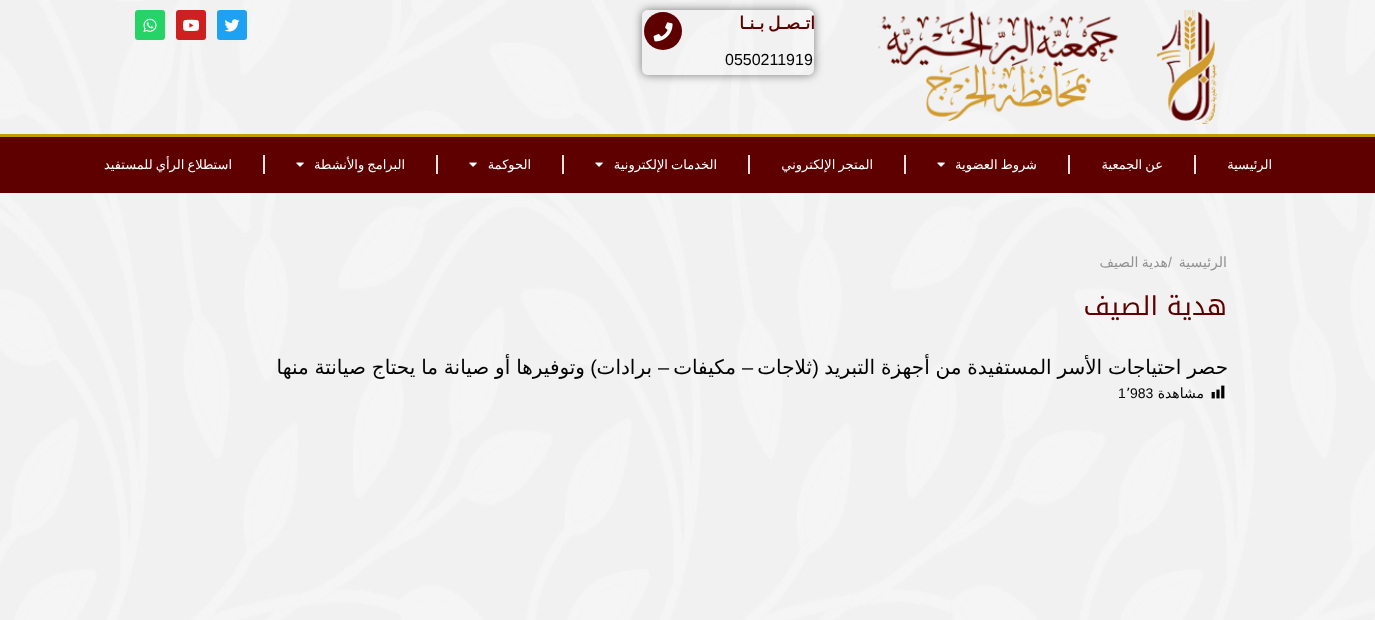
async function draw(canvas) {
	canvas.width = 1375;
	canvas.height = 620;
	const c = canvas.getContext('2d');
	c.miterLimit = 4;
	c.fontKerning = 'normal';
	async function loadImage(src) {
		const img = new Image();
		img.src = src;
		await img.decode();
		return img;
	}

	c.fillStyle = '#fff';
	c.fillRect(0, 0, 1375, 620);
	c.drawImage(await loadImage('img1.png'), 0, 0, 1375, 620);
	c.drawImage(await loadImage('img2.png'), 878, 10, 339, 114);
	c.save();
	c.beginPath();
	c.moveTo(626, 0);
	c.lineTo(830, 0);
	c.lineTo(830, 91);
	c.lineTo(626, 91);
	c.closePath();
	c.moveTo(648, 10);
	c.lineTo(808, 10);
	c.bezierCurveTo(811.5, 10, 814, 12.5, 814, 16);
	c.lineTo(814, 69);
	c.bezierCurveTo(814, 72.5, 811.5, 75, 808, 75);
	c.lineTo(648, 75);
	c.bezierCurveTo(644.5, 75, 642, 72.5, 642, 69);
	c.lineTo(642, 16);
	c.bezierCurveTo(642, 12.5, 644.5, 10, 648, 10);
	c.closePath();
	c.clip('evenodd');
	c.fillStyle = '#00000080';
	c.filter = 'blur(5px)';
	c.beginPath();
	c.roundRect(642, 10, 172, 65, 6);
	c.fill();
	c.filter = 'none';
	c.restore();
	c.letterSpacing = '0.25px';
	c.wordSpacing = '-2px';
	c.direction = 'rtl';
	c.font = 'bold 17px DejaVu Sans';
	c.fillStyle = '#5e0000';
	c.fillText('اتـصـل بـنـا', 815, 29);
	c.letterSpacing = '0px';
	c.wordSpacing = '0px';
	c.direction = 'ltr';
	c.font = '16px Liberation Sans';
	c.fillStyle = '#020101';
	c.fillText('0550211919', 725, 65);
	c.fillStyle = '#5e0000';
	c.beginPath();
	c.arc(663, 31, 19, 0, 2 * Math.PI);
	c.fill();
	c.drawImage(await loadImage('img3.png'), 653, 22, 20, 20);
	c.fillStyle = '#1da1f2';
	c.beginPath();
	c.roundRect(217, 10, 30, 30, 3);
	c.fill();
	c.drawImage(await loadImage('img4.png'), 224, 19, 16, 13);
	c.fillStyle = '#cd201f';
	c.beginPath();
	c.roundRect(176, 10, 30, 30, 3);
	c.fill();
	c.drawImage(await loadImage('img5.png'), 183, 19, 16, 12);
	c.fillStyle = '#25d366';
	c.beginPath();
	c.roundRect(135, 10, 30, 30, 3);
	c.fill();
	c.drawImage(await loadImage('img6.png'), 143, 18, 14, 14);
	c.fillStyle = '#5e0000';
	c.fillRect(0, 137, 1375, 56);
	c.fillStyle = '#bf9f00';
	c.fillRect(0, 134, 1375, 3);
	c.direction = 'rtl';
	c.font = '13px DejaVu Sans';
	c.fillStyle = '#fff';
	c.fillText('الرئيسية', 1272, 169);
	c.fillStyle = '#e7e1e1';
	c.fillRect(1194, 155, 2, 19);
	c.wordSpacing = '-1px';
	c.fillStyle = '#fff';
	c.fillText('عن الجمعية', 1163, 169);
	c.fillStyle = '#e7e1e1';
	c.fillRect(1068, 155, 2, 19);
	c.fillStyle = '#fff';
	c.fillText('شروط العضوية', 1037, 169);
	c.drawImage(await loadImage('img7.png'), 937, 162, 8, 5);
	c.fillStyle = '#e7e1e1';
	c.fillRect(904, 155, 2, 19);
	c.fillStyle = '#fff';
	c.fillText('المتجر الإلكتروني', 873, 169);
	c.fillStyle = '#e7e1e1';
	c.fillRect(748, 155, 2, 19);
	c.fillStyle = '#fff';
	c.fillText('الخدمات الإلكترونية', 717, 169);
	c.drawImage(await loadImage('img7.png'), 595, 162, 8, 5);
	c.fillStyle = '#e7e1e1';
	c.fillRect(562, 155, 2, 19);
	c.wordSpacing = '0px';
	c.fillStyle = '#fff';
	c.fillText('الحوكمة', 531, 169);
	c.drawImage(await loadImage('img7.png'), 469, 162, 8, 5);
	c.fillStyle = '#e7e1e1';
	c.fillRect(436, 155, 2, 19);
	c.wordSpacing = '-1px';
	c.fillStyle = '#fff';
	c.fillText('البرامج والأنشطة', 405, 169);
	c.drawImage(await loadImage('img7.png'), 296, 162, 8, 5);
	c.fillStyle = '#e7e1e1';
	c.fillRect(263, 155, 2, 19);
	c.fillStyle = '#fff';
	c.fillText('استطلاع الرأي للمستفيد', 232, 169);
	c.wordSpacing = '0px';
	c.font = '14px DejaVu Sans';
	c.fillStyle = '#919191';
	c.fillText('الرئيسية', 1227, 267);
	c.direction = 'ltr';
	c.font = '14px Liberation Sans';
	c.fillText('/', 1168, 267);
	c.wordSpacing = '-1px';
	c.direction = 'rtl';
	c.font = '14px DejaVu Sans';
	c.fillText('هدية الصيف', 1168, 267);
	c.wordSpacing = '0px';
	c.font = '26px Noto Kufi Arabic';
	c.fillStyle = '#5e0000';
	c.fillText('هدية الصيف', 1227, 315);
	c.wordSpacing = '-0.5px';
	c.font = '20px DejaVu Sans';
	c.fillStyle = '#020101';
	c.fillText('حصر احتياجات الأسر المستفيدة من أجهزة التبريد', 1228, 374);
	c.wordSpacing = '0px';
	c.font = '20px Liberation Sans';
	c.fillText('(', 819, 374);
	c.font = '20px DejaVu Sans';
	c.fillText('ثلاجات', 812, 374);
	c.font = '20px Liberation Sans';
	c.fillText('–', 753, 374);
	c.font = '20px DejaVu Sans';
	c.fillText('مكيفات', 736, 374);
	c.font = '20px Liberation Sans';
	c.fillText('–', 669, 374);
	c.font = '20px DejaVu Sans';
	c.fillText('برادات', 652, 374);
	c.font = '20px Liberation Sans';
	c.fillText(')', 597, 374);
	c.wordSpacing = '-0.5px';
	c.font = '20px DejaVu Sans';
	c.fillText('وتوفيرها أو صيانة ما يحتاج صيانتة منها', 585, 374);
	c.drawImage(await loadImage('img8.png'), 1211, 385, 14, 14);
	c.wordSpacing = '0px';
	c.font = '14px DejaVu Sans';
	c.fillText('مشاهدة', 1204, 398);
	c.direction = 'ltr';
	c.font = '14px Liberation Sans';
	c.fillText('983', 1130, 398);
	c.font = '14px DejaVu Sans';
	c.fillText('٬', 1126, 398);
	c.font = '14px Liberation Sans';
	c.fillText('1', 1118, 398);
}

draw(document.querySelector('canvas'));
